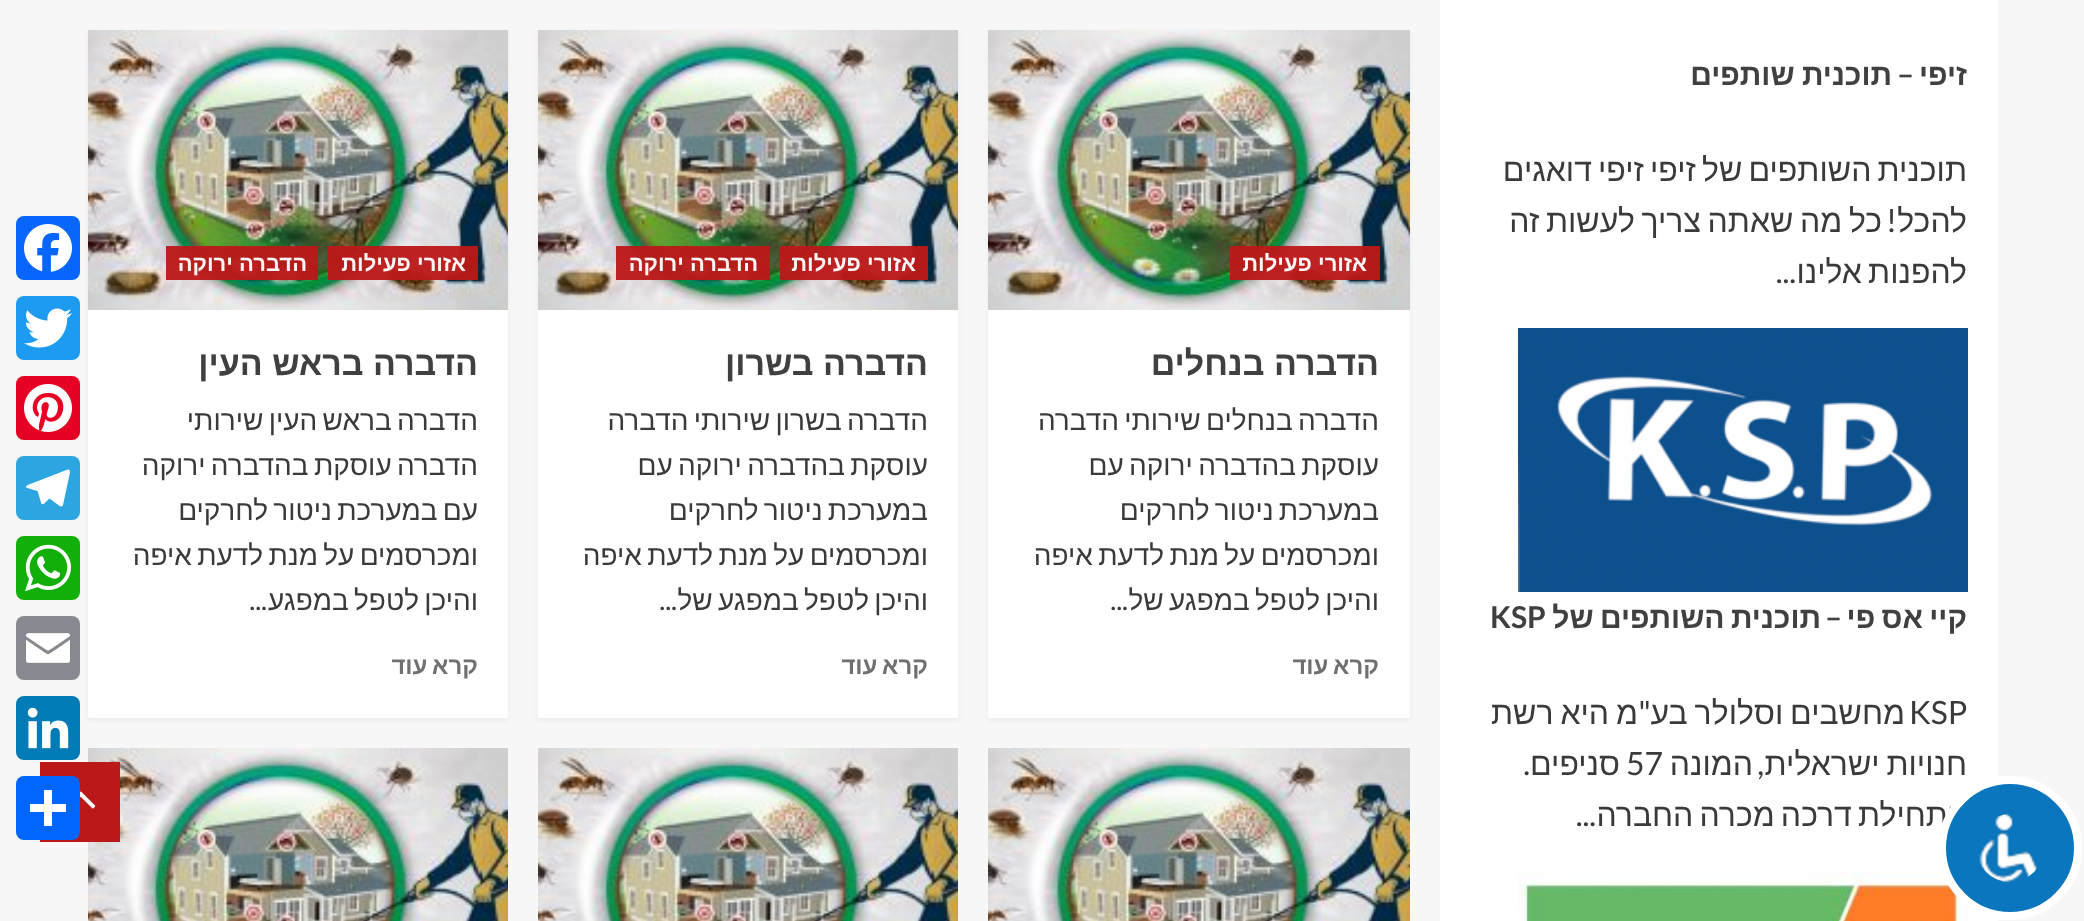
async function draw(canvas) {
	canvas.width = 2084;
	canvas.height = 921;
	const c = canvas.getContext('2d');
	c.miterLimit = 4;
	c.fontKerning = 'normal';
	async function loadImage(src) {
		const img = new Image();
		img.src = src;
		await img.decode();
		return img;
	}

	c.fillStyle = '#f7f7f7';
	c.fillRect(0, 0, 2084, 921);
	c.fillStyle = '#fff';
	c.fillRect(1440, 0, 558, 921);
	c.direction = 'rtl';
	c.font = 'bold 30px Liberation Sans';
	c.fillStyle = '#404040';
	c.fillText('זיפי', 1967, 85);
	c.font = 'bold 30px Lato';
	c.fillText('–', 1914, 85);
	c.wordSpacing = '-1px';
	c.font = 'bold 30px Liberation Sans';
	c.fillText('תוכנית שותפים', 1892, 85);
	c.wordSpacing = '-2.75px';
	c.font = '32px Liberation Sans';
	c.fillStyle = '#3a3a3a';
	c.fillText('תוכנית השותפים של זיפי זיפי דואגים', 1967, 181);
	c.wordSpacing = '0px';
	c.fillText('להכל', 1967, 232);
	c.wordSpacing = '-2.25px';
	c.fillText('כל מה שאתה צריך לעשות זה', 1882, 232);
	c.wordSpacing = '0px';
	c.font = '32px Lato';
	c.fillText('!', 1897, 232);
	c.wordSpacing = '-2.75px';
	c.font = '32px Liberation Sans';
	c.fillText('להפנות אלינו', 1967, 283);
	c.wordSpacing = '0px';
	c.font = '32px Lato';
	c.fillText('...', 1796, 283);
	c.drawImage(await loadImage('img1.png'), 1518, 328, 450, 264);
	c.wordSpacing = '-2px';
	c.font = 'bold 30px Liberation Sans';
	c.fillStyle = '#404040';
	c.fillText('קיי אס פי', 1967, 628);
	c.wordSpacing = '0px';
	c.font = 'bold 30px Lato';
	c.fillText('–', 1842, 628);
	c.wordSpacing = '-2px';
	c.font = 'bold 30px Liberation Sans';
	c.fillText('תוכנית השותפים של', 1821, 628);
	c.wordSpacing = '0px';
	c.direction = 'ltr';
	c.font = 'bold 30px Lato';
	c.fillText('KSP', 1490, 628);
	c.font = '32px Lato';
	c.fillStyle = '#3a3a3a';
	c.fillText('KSP', 1909, 724);
	c.wordSpacing = '-2px';
	c.direction = 'rtl';
	c.font = '32px Liberation Sans';
	c.fillText('מחשבים וסלולר בע', 1905, 724);
	c.wordSpacing = '0px';
	c.font = '32px Lato';
	c.fillText('"', 1651, 724);
	c.wordSpacing = '-2px';
	c.font = '32px Liberation Sans';
	c.fillText('מ היא רשת', 1638, 724);
	c.fillText('חנויות ישראלית', 1967, 775);
	c.wordSpacing = '0px';
	c.font = '32px Lato';
	c.fillText(',', 1764, 775);
	c.font = '32px Liberation Sans';
	c.fillText('המונה', 1753, 775);
	c.direction = 'ltr';
	c.font = '32px Lato';
	c.fillText('57', 1626, 775);
	c.direction = 'rtl';
	c.font = '32px Liberation Sans';
	c.fillText('סניפים', 1620, 775);
	c.font = '32px Lato';
	c.fillText('.', 1530, 775);
	c.wordSpacing = '-2.75px';
	c.font = '32px Liberation Sans';
	c.fillText('בתחילת דרכה מכרה החברה', 1967, 826);
	c.wordSpacing = '0px';
	c.font = '32px Lato';
	c.fillText('...', 1596, 826);
	c.drawImage(await loadImage('img2.png'), 1518, 872, 450, 49);
	c.fillStyle = '#0000000d';
	c.filter = 'blur(2px)';
	c.beginPath();
	c.rect(988, 32, 422, 688);
	c.fill();
	c.filter = 'none';
	c.fillStyle = '#fff';
	c.fillRect(988, 310, 422, 408);
	c.drawImage(await loadImage('img3.png'), 988, 30, 422, 280);
	c.fillStyle = '#bb1919f5';
	c.fillRect(1230, 246, 150, 34);
	c.font = 'bold 22px Liberation Sans';
	c.fillStyle = '#fcf6f6';
	c.fillText('אזורי פעילות', 1367, 271);
	c.font = 'bold 34px Liberation Sans';
	c.fillStyle = '#404040';
	c.fillText('הדברה בנחלים', 1379, 375);
	c.wordSpacing = '-2.5px';
	c.font = '28px Liberation Sans';
	c.fillStyle = '#3a3a3a';
	for (const [text, x, y] of [
		['הדברה בנחלים שירותי הדברה', 1379, 430],
		['עוסקת בהדברה ירוקה עם', 1379, 475],
		['במערכת ניטור לחרקים', 1379, 520],
		['ומכרסמים על מנת לדעת איפה', 1379, 565],
		['והיכן לטפל במפגע של', 1379, 610],
	]) {
		c.fillText(text, x, y);
	}
	c.wordSpacing = '0px';
	c.font = '28px Lato';
	c.fillText('...', 1128, 610);
	c.wordSpacing = '-2px';
	c.font = 'bold 24px Liberation Sans';
	c.fillStyle = '#707070';
	c.fillText('קרא עוד', 1379, 674);
	c.fillStyle = '#0000000d';
	c.filter = 'blur(2px)';
	c.beginPath();
	c.rect(538, 32, 420, 688);
	c.fill();
	c.filter = 'none';
	c.fillStyle = '#fff';
	c.fillRect(538, 310, 420, 408);
	c.drawImage(await loadImage('img4.png'), 538, 30, 420, 280);
	c.fillStyle = '#bb1919f5';
	c.fillRect(780, 246, 148, 34);
	c.wordSpacing = '0px';
	c.font = 'bold 22px Liberation Sans';
	c.fillStyle = '#fcf6f6';
	c.fillText('אזורי פעילות', 916, 271);
	c.fillStyle = '#bb1919f5';
	c.fillRect(616, 246, 154, 34);
	c.fillStyle = '#fcf6f6';
	c.fillText('הדברה ירוקה', 758, 271);
	c.font = 'bold 34px Liberation Sans';
	c.fillStyle = '#404040';
	c.fillText('הדברה בשרון', 928, 375);
	c.wordSpacing = '-2.5px';
	c.font = '28px Liberation Sans';
	c.fillStyle = '#3a3a3a';
	for (const [text, x, y] of [
		['הדברה בשרון שירותי הדברה', 928, 430],
		['עוסקת בהדברה ירוקה עם', 928, 475],
		['במערכת ניטור לחרקים', 928, 520],
		['ומכרסמים על מנת לדעת איפה', 928, 565],
		['והיכן לטפל במפגע של', 928, 610],
	]) {
		c.fillText(text, x, y);
	}
	c.wordSpacing = '0px';
	c.font = '28px Lato';
	c.fillText('...', 677, 610);
	c.wordSpacing = '-2px';
	c.font = 'bold 24px Liberation Sans';
	c.fillStyle = '#707070';
	c.fillText('קרא עוד', 928, 674);
	c.fillStyle = '#0000000d';
	c.filter = 'blur(2px)';
	c.beginPath();
	c.rect(88, 32, 420, 688);
	c.fill();
	c.filter = 'none';
	c.fillStyle = '#fff';
	c.fillRect(88, 310, 420, 408);
	c.drawImage(await loadImage('img5.png'), 88, 30, 420, 280);
	c.fillStyle = '#bb1919f5';
	c.fillRect(328, 246, 150, 34);
	c.wordSpacing = '0px';
	c.font = 'bold 22px Liberation Sans';
	c.fillStyle = '#fcf6f6';
	c.fillText('אזורי פעילות', 466, 271);
	c.fillStyle = '#bb1919f5';
	c.fillRect(166, 246, 152, 34);
	c.fillStyle = '#fcf6f6';
	c.fillText('הדברה ירוקה', 307, 271);
	c.font = 'bold 34px Liberation Sans';
	c.fillStyle = '#404040';
	c.fillText('הדברה בראש העין', 478, 375);
	c.wordSpacing = '-2.5px';
	c.font = '28px Liberation Sans';
	c.fillStyle = '#3a3a3a';
	for (const [text, x, y] of [
		['הדברה בראש העין שירותי', 478, 430],
		['הדברה עוסקת בהדברה ירוקה', 478, 475],
		['עם במערכת ניטור לחרקים', 478, 520],
		['ומכרסמים על מנת לדעת איפה', 478, 565],
		['והיכן לטפל במפגע', 478, 610],
	]) {
		c.fillText(text, x, y);
	}
	c.wordSpacing = '0px';
	c.font = '28px Lato';
	c.fillText('...', 267, 610);
	c.wordSpacing = '-2px';
	c.font = 'bold 24px Liberation Sans';
	c.fillStyle = '#707070';
	c.fillText('קרא עוד', 478, 674);
	c.drawImage(await loadImage('img6.png'), 988, 748, 422, 173);
	c.drawImage(await loadImage('img7.png'), 538, 748, 420, 173);
	c.drawImage(await loadImage('img8.png'), 88, 748, 420, 173);
	c.fillStyle = '#0866ff';
	c.beginPath();
	c.roundRect(16, 216, 64, 64, 8);
	c.fill();
	c.drawImage(await loadImage('img9.png'), 24, 224, 48, 48);
	c.fillStyle = '#1d9bf0';
	c.beginPath();
	c.roundRect(16, 296, 64, 64, 8);
	c.fill();
	c.drawImage(await loadImage('img10.png'), 24, 308, 48, 40);
	c.fillStyle = '#e60023';
	c.beginPath();
	c.roundRect(16, 376, 64, 64, 8);
	c.fill();
	c.drawImage(await loadImage('img11.png'), 24, 384, 48, 48);
	c.fillStyle = '#2ca5e0';
	c.beginPath();
	c.roundRect(16, 456, 64, 64, 8);
	c.fill();
	c.drawImage(await loadImage('img12.png'), 26, 469, 44, 38);
	c.fillStyle = '#12af0a';
	c.beginPath();
	c.roundRect(16, 536, 64, 64, 8);
	c.fill();
	c.drawImage(await loadImage('img13.png'), 25, 544, 46, 48);
	c.fillStyle = '#888990';
	c.beginPath();
	c.roundRect(16, 616, 64, 64, 8);
	c.fill();
	c.drawImage(await loadImage('img14.png'), 26, 633, 44, 30);
	c.fillStyle = '#007bb5';
	c.beginPath();
	c.roundRect(16, 696, 64, 64, 8);
	c.fill();
	c.drawImage(await loadImage('img15.png'), 27, 707, 42, 42);
	c.fillStyle = '#bb1919';
	c.fillRect(40, 762, 80, 80);
	c.fillStyle = '#0166ff';
	c.beginPath();
	c.roundRect(16, 776, 64, 64, 8);
	c.fill();
	c.fillStyle = '#fff';
	c.fillRect(44, 790, 8, 36);
	c.fillRect(30, 804, 36, 8);
	c.drawImage(await loadImage('img16.png'), 80, 791, 16, 18);
	c.fillStyle = '#0a76be';
	c.beginPath();
	c.arc(2010, 848, 68, 0, 2 * Math.PI);
	c.fill();
	c.strokeStyle = '#fff';
	c.lineWidth = 8;
	c.stroke();
	c.drawImage(await loadImage('img17.png'), 1979, 814, 59, 68);
}

draw(document.querySelector('canvas'));
